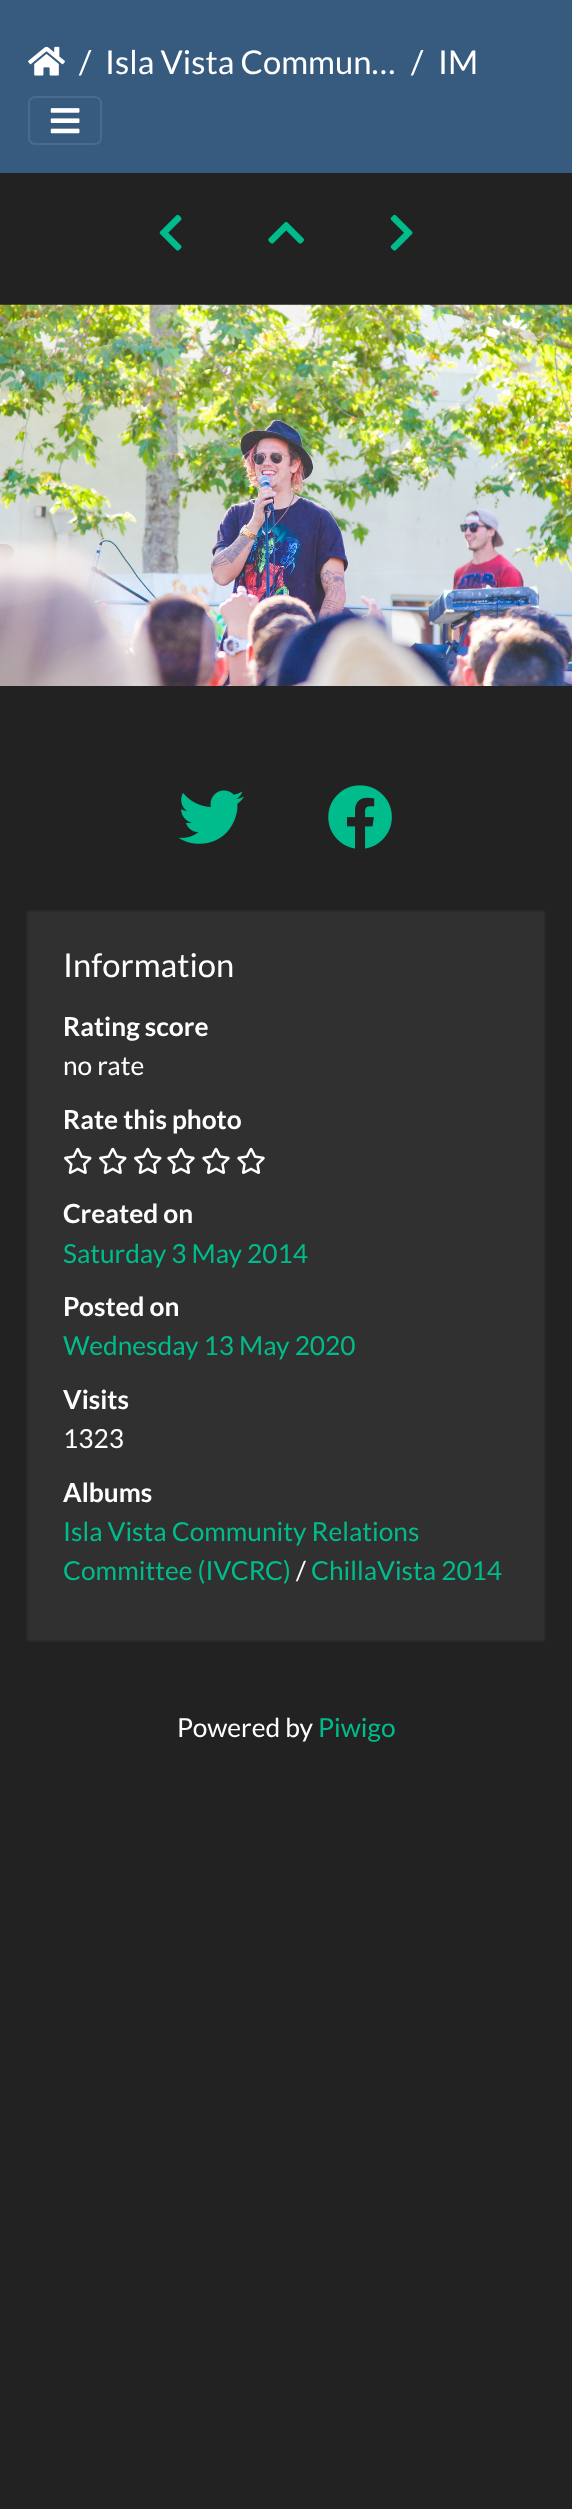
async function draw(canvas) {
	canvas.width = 572;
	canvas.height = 2509;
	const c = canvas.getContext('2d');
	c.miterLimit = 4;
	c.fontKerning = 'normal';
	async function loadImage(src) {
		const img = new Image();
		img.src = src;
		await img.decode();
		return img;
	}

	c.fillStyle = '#222';
	c.fillRect(0, 0, 572, 2509);
	c.fillStyle = '#375a7f';
	c.fillRect(0, 0, 572, 173);
	c.drawImage(await loadImage('img1.png'), 28, 46, 37, 30);
	c.font = '32.75px Lato';
	c.fillStyle = '#fff';
	for (const [text, x, y] of [
		['/', 79, 74],
		['Isla Vista Commun…', 105, 74],
		['/', 411, 74],
		['IM', 438, 74],
	]) {
		c.fillText(text, x, y);
	}
	c.beginPath();
	c.roundRect(29, 97, 72, 47, 6);
	c.strokeStyle = '#4b6b8c';
	c.lineWidth = 2;
	c.stroke();
	c.drawImage(await loadImage('img2.png'), 50, 108, 30, 26);
	c.drawImage(await loadImage('img3.png'), 159, 214, 23, 37);
	c.drawImage(await loadImage('img4.png'), 268, 221, 36, 23);
	c.drawImage(await loadImage('img5.png'), 390, 214, 23, 37);
	c.drawImage(await loadImage('img6.png'), 0, 304, 572, 382);
	c.drawImage(await loadImage('img7.png'), 178, 790, 66, 54);
	c.drawImage(await loadImage('img8.png'), 328, 785, 64, 64);
	c.fillStyle = '#303030';
	c.beginPath();
	c.roundRect(26, 910, 520, 732, 4);
	c.fill();
	c.beginPath();
	c.roundRect(27, 911, 518, 730, 3);
	c.strokeStyle = '#0000001f';
	c.stroke();
	c.fillStyle = '#fff';
	c.fillText('Information', 63, 977);
	c.font = 'bold 26.25px Lato';
	c.fillText('Rating score', 63, 1036);
	c.font = '26.25px Lato';
	c.fillText('no rate', 63, 1075);
	c.font = 'bold 26.25px Lato';
	c.fillText('Rate this photo', 63, 1129);
	c.drawImage(await loadImage('img9.png'), 64, 1147, 28, 27);
	c.drawImage(await loadImage('img9.png'), 99, 1147, 28, 27);
	c.drawImage(await loadImage('img9.png'), 134, 1147, 28, 27);
	c.drawImage(await loadImage('img10.png'), 167, 1147, 28, 27);
	c.drawImage(await loadImage('img10.png'), 202, 1147, 28, 27);
	c.drawImage(await loadImage('img10.png'), 237, 1147, 28, 27);
	c.fillText('Created on', 63, 1223);
	c.font = '26.25px Lato';
	c.fillStyle = '#00bc8c';
	c.fillText('Saturday 3 May 2014', 63, 1263);
	c.font = 'bold 26.25px Lato';
	c.fillStyle = '#fff';
	c.fillText('Posted on', 63, 1316);
	c.font = '26.25px Lato';
	c.fillStyle = '#00bc8c';
	c.fillText('Wednesday 13 May 2020', 63, 1355);
	c.font = 'bold 26.25px Lato';
	c.fillStyle = '#fff';
	c.fillText('Visits', 63, 1409);
	c.font = '26.25px Lato';
	c.fillText('1323', 63, 1448);
	c.font = 'bold 26.25px Lato';
	c.fillText('Albums', 63, 1502);
	c.font = '26.25px Lato';
	c.fillStyle = '#00bc8c';
	c.fillText('Isla Vista Community Relations', 63, 1541);
	c.fillText('Committee (IVCRC)', 63, 1580);
	c.fillStyle = '#fff';
	c.fillText('/', 296, 1580);
	c.fillStyle = '#00bc8c';
	c.fillText('ChillaVista 2014', 311, 1580);
	c.fillStyle = '#fff';
	c.fillText('Powered by', 177, 1737);
	c.fillStyle = '#00bc8c';
	c.fillText('Piwigo', 318, 1737);
}

draw(document.querySelector('canvas'));
